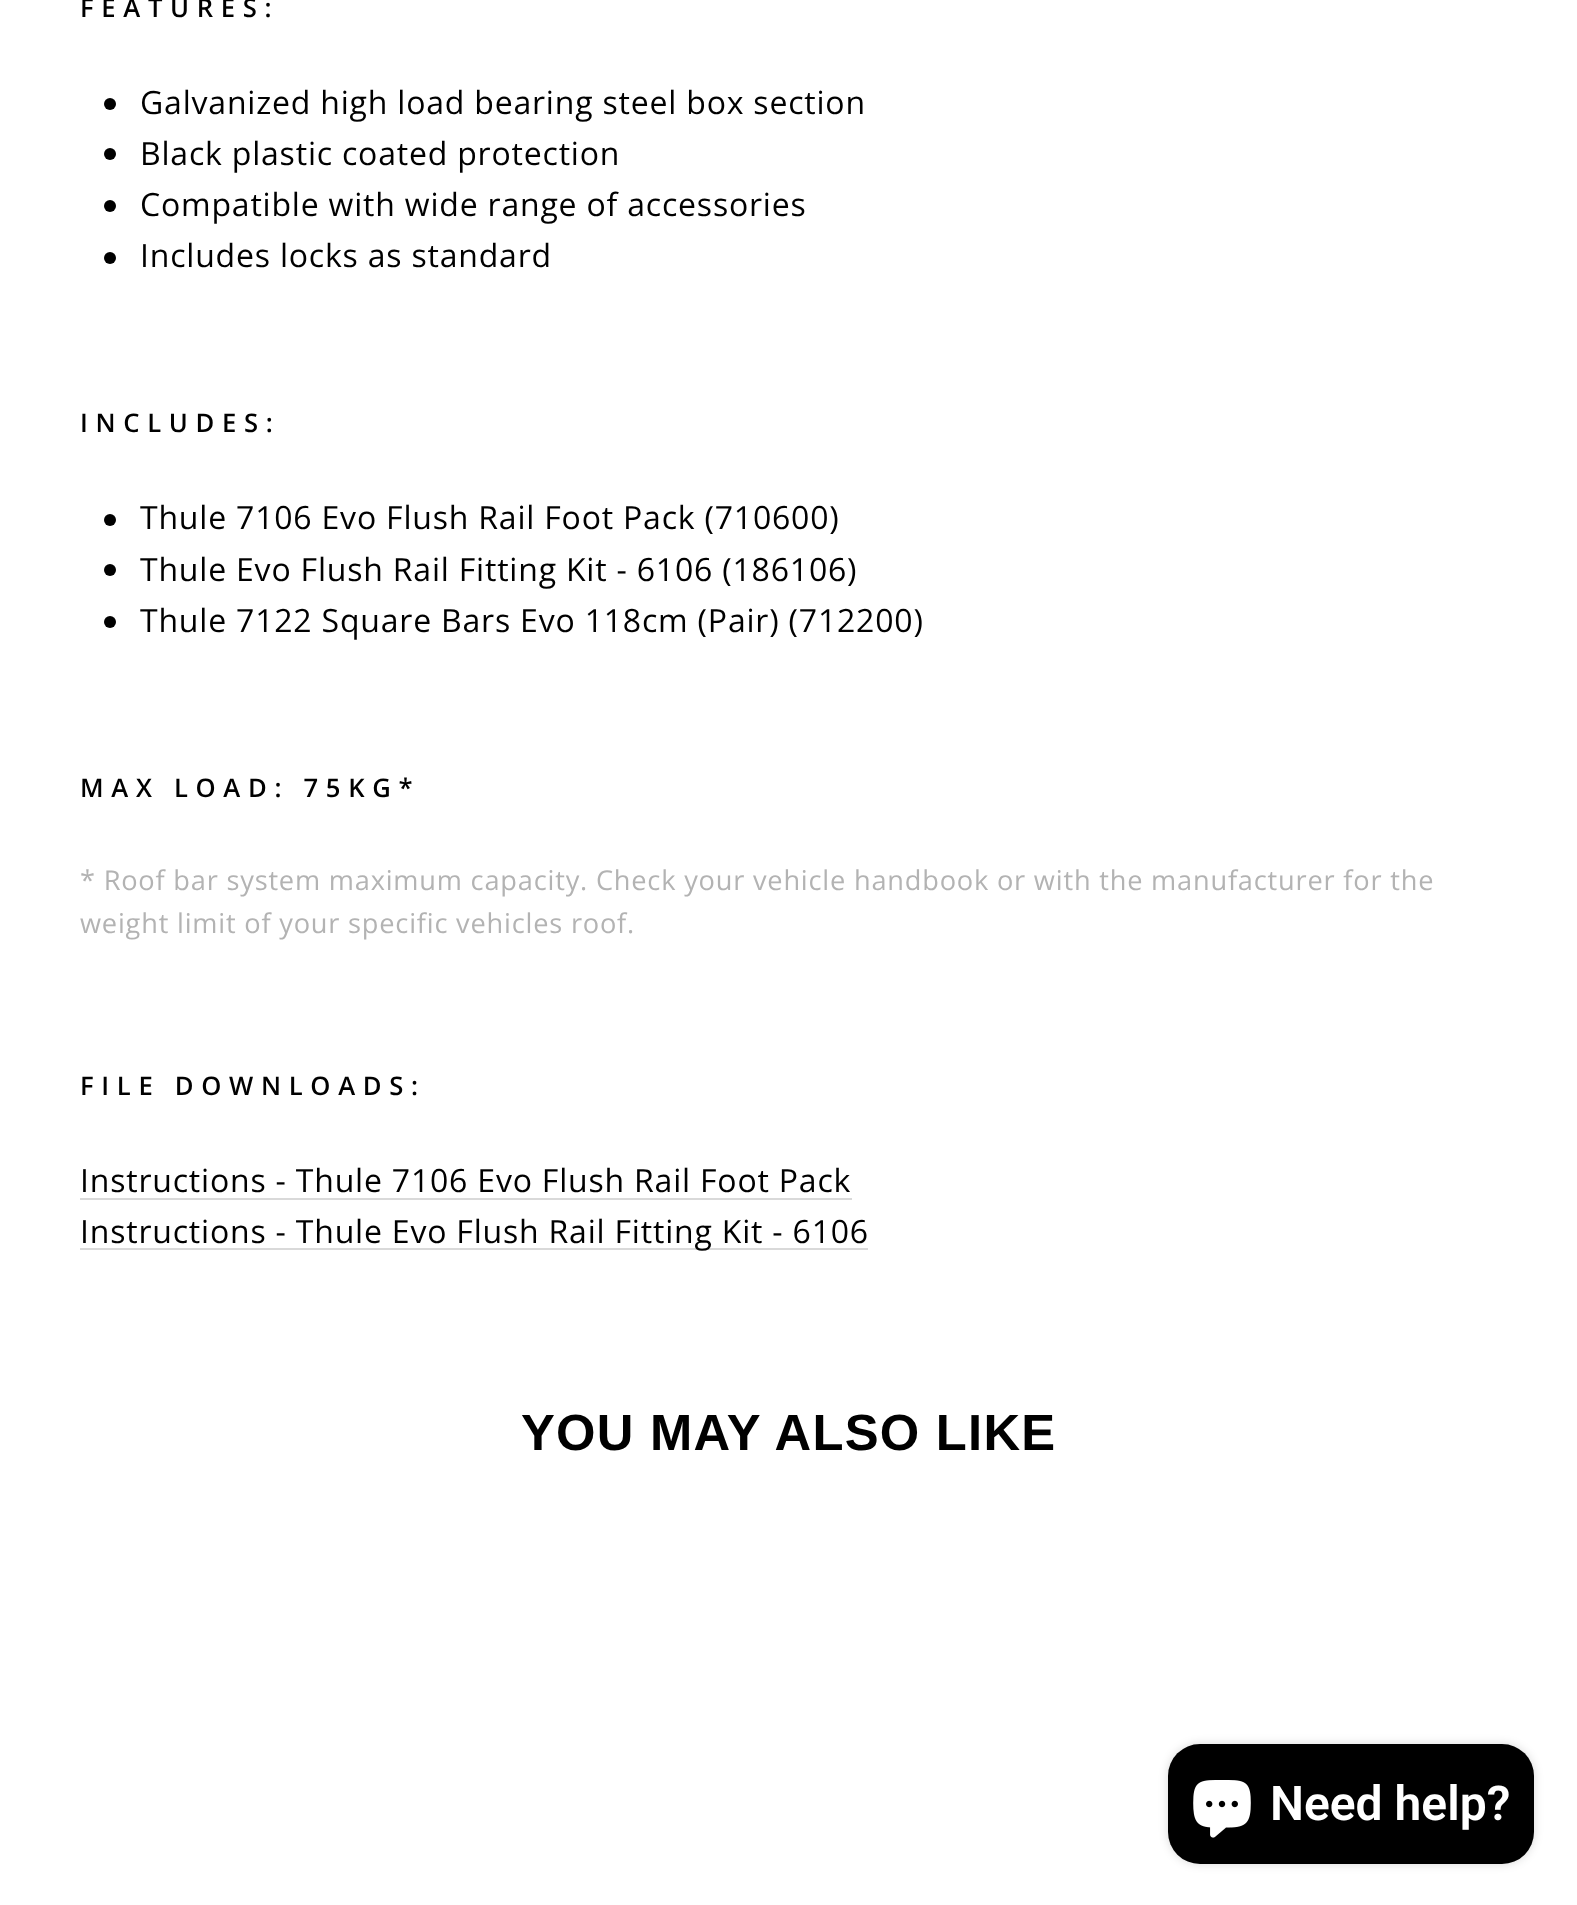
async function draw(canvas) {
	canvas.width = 1577;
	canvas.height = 1905;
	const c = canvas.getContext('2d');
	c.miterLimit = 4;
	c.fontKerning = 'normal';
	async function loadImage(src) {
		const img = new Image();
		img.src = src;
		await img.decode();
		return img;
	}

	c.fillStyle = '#fff';
	c.fillRect(0, 0, 1577, 1905);
	c.letterSpacing = '7.7px';
	c.font = '600 25.6px Open Sans';
	c.fillStyle = '#000';
	c.fillText('FEATURES:', 80, 17);
	c.beginPath();
	c.arc(110, 104, 6, 0, 2 * Math.PI);
	c.fill();
	c.letterSpacing = '0.8px';
	c.font = '32px Open Sans';
	c.fillText('Galvanized high load bearing steel box section', 140, 114);
	c.beginPath();
	c.arc(110, 154, 6, 0, 2 * Math.PI);
	c.fill();
	c.fillText('Black plastic coated protection', 140, 165);
	c.beginPath();
	c.arc(110, 206, 6, 0, 2 * Math.PI);
	c.fill();
	c.fillText('Compatible with wide range of accessories', 140, 216);
	c.beginPath();
	c.arc(110, 258, 6, 0, 2 * Math.PI);
	c.fill();
	c.fillText('Includes locks as standard', 140, 267);
	c.letterSpacing = '7.7px';
	c.font = '600 25.6px Open Sans';
	c.fillText('INCLUDES:', 80, 432);
	c.beginPath();
	c.arc(110, 520, 6, 0, 2 * Math.PI);
	c.fill();
	c.letterSpacing = '0.8px';
	c.font = '32px Open Sans';
	c.fillText('Thule 7106 Evo Flush Rail Foot Pack (710600)', 140, 529);
	c.beginPath();
	c.arc(110, 570, 6, 0, 2 * Math.PI);
	c.fill();
	c.fillText('Thule Evo Flush Rail Fitting Kit - 6106 (186106)', 140, 581);
	c.beginPath();
	c.arc(110, 622, 6, 0, 2 * Math.PI);
	c.fill();
	c.fillText('Thule 7122 Square Bars Evo 118cm (Pair) (712200)', 140, 632);
	c.letterSpacing = '7.7px';
	c.font = '600 25.6px Open Sans';
	c.fillText('MAX LOAD: 75KG*', 80, 797);
	c.letterSpacing = '0.8px';
	c.font = '27.2px Open Sans';
	c.fillStyle = '#b3b3b3';
	c.fillText('* Roof bar system maximum capacity. Check your vehicle handbook or with the manufacturer for the', 80, 890);
	c.fillText('weight limit of your specific vehicles roof.', 80, 933);
	c.letterSpacing = '7.7px';
	c.font = '600 25.6px Open Sans';
	c.fillStyle = '#000';
	c.fillText('FILE DOWNLOADS:', 80, 1095);
	c.letterSpacing = '0.8px';
	c.font = '32px Open Sans';
	c.fillText('Instructions - Thule 7106 Evo Flush Rail Foot Pack', 80, 1192);
	c.fillStyle = '#d9d9d9';
	c.fillRect(80, 1198, 772, 2);
	c.fillRect(80, 1248, 788, 2);
	c.fillStyle = '#000';
	c.fillText('Instructions - Thule Evo Flush Rail Fitting Kit - 6106', 80, 1243);
	c.letterSpacing = '1.25px';
	c.font = 'bold 50.75px Arimo';
	c.fillText('YOU MAY ALSO LIKE', 521, 1450);
	c.fillStyle = '#00000026';
	c.filter = 'blur(5px)';
	c.beginPath();
	c.roundRect(1168, 1744, 366, 120, 32);
	c.fill();
	c.filter = 'none';
	c.fillStyle = '#000';
	c.beginPath();
	c.roundRect(1168, 1744, 366, 120, 32);
	c.fill();
	c.drawImage(await loadImage('img1.png'), 1193, 1780, 58, 58);
	c.letterSpacing = '0px';
	c.font = '600 48px Roboto';
	c.fillStyle = '#fff';
	c.fillText('Need help?', 1270, 1820);
}

draw(document.querySelector('canvas'));
